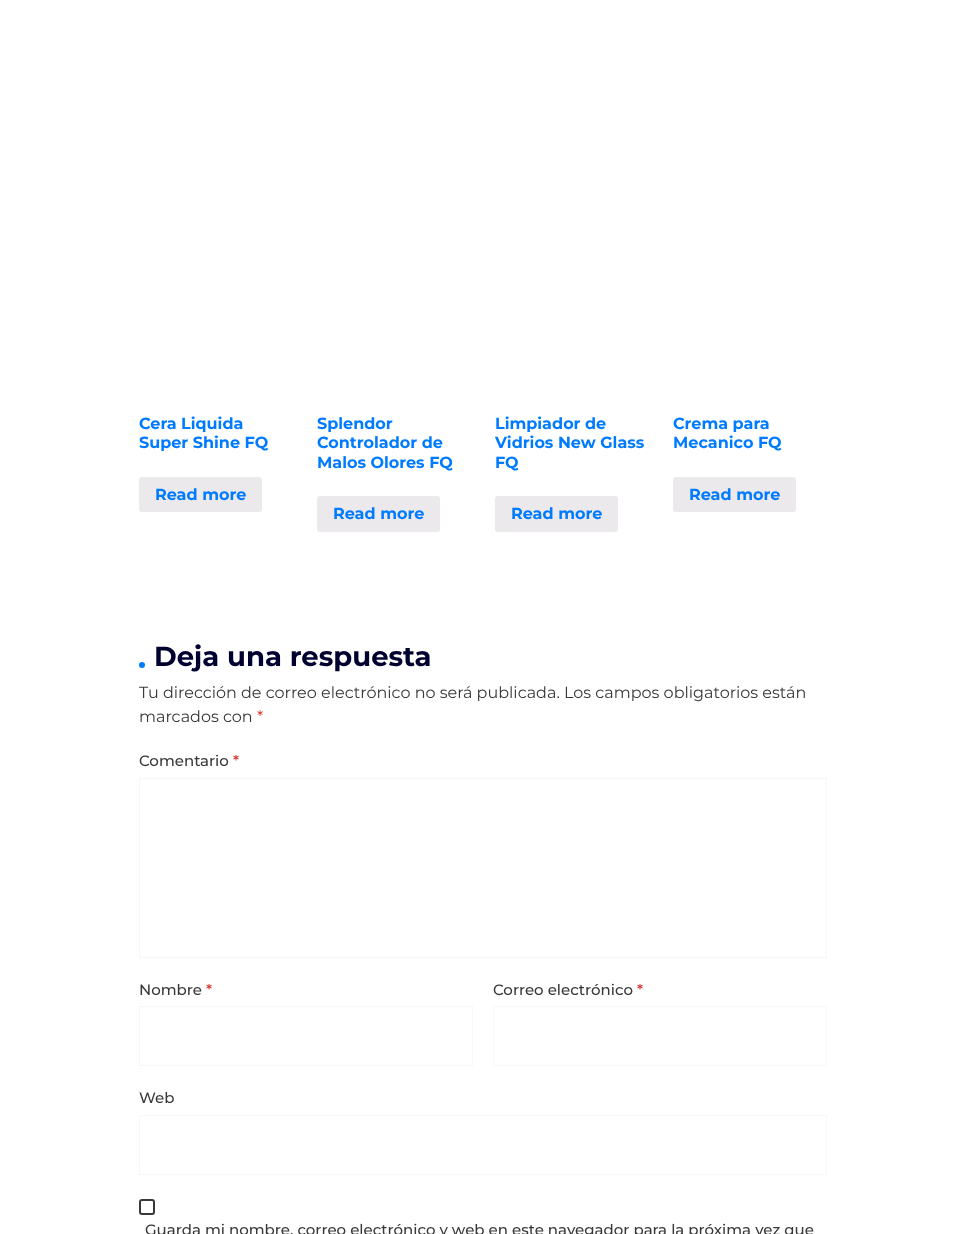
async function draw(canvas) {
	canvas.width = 966;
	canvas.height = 1234;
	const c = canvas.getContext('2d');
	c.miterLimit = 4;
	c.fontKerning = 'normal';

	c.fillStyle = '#fff';
	c.fillRect(0, 0, 966, 1234);
	c.font = 'bold 16px Montserrat';
	c.fillStyle = '#007bff';
	c.fillText('Cera Liquida', 139, 429);
	c.fillText('Super Shine FQ', 139, 448);
	c.fillStyle = '#ebe9eb';
	c.beginPath();
	c.roundRect(139, 477, 123, 35, 3);
	c.fill();
	c.fillStyle = '#007bff';
	for (const [text, x, y] of [
		['Read more', 155, 500],
		['Splendor', 317, 429],
		['Controlador de', 317, 448],
		['Malos Olores FQ', 317, 468],
	]) {
		c.fillText(text, x, y);
	}
	c.fillStyle = '#ebe9eb';
	c.beginPath();
	c.roundRect(317, 496, 123, 36, 3);
	c.fill();
	c.fillStyle = '#007bff';
	for (const [text, x, y] of [
		['Read more', 333, 519],
		['Limpiador de', 495, 429],
		['Vidrios New Glass', 495, 448],
		['FQ', 495, 468],
	]) {
		c.fillText(text, x, y);
	}
	c.fillStyle = '#ebe9eb';
	c.beginPath();
	c.roundRect(495, 496, 123, 36, 3);
	c.fill();
	c.fillStyle = '#007bff';
	for (const [text, x, y] of [
		['Read more', 511, 519],
		['Crema para', 673, 429],
		['Mecanico FQ', 673, 448],
	]) {
		c.fillText(text, x, y);
	}
	c.fillStyle = '#ebe9eb';
	c.beginPath();
	c.roundRect(673, 477, 123, 35, 3);
	c.fill();
	c.fillStyle = '#007bff';
	c.fillText('Read more', 689, 500);
	c.beginPath();
	c.arc(142, 665, 3, 0, 2 * Math.PI);
	c.fill();
	c.font = 'bold 27.5px Montserrat';
	c.fillStyle = '#01012f';
	c.fillText('Deja una respuesta', 154, 666);
	c.font = '16px Montserrat';
	c.fillStyle = '#393939';
	c.fillText('Tu dirección de correo electrónico no será publicada. Los campos obligatorios están', 139, 698);
	c.fillText('marcados con', 139, 722);
	c.fillStyle = '#dc221c';
	c.fillText('*', 257, 722);
	c.font = '500 15px Montserrat';
	c.fillStyle = '#393939';
	c.fillText('Comentario', 139, 766);
	c.fillStyle = '#dc221c';
	c.fillText('*', 233, 766);
	c.strokeStyle = '#f7f7f7';
	c.strokeRect(139.5, 778.5, 687, 179);
	c.fillStyle = '#393939';
	c.fillText('Nombre', 139, 995);
	c.fillStyle = '#dc221c';
	c.fillText('*', 206, 995);
	c.strokeRect(139.5, 1006.5, 333, 59);
	c.fillStyle = '#393939';
	c.fillText('Correo electrónico', 493, 995);
	c.fillStyle = '#dc221c';
	c.fillText('*', 637, 995);
	c.strokeRect(493.5, 1006.5, 333, 59);
	c.fillStyle = '#393939';
	c.fillText('Web', 139, 1103);
	c.strokeRect(139.5, 1115.5, 687, 59);
	c.beginPath();
	c.roundRect(140, 1200, 14, 14, 2);
	c.strokeStyle = '#393939';
	c.lineWidth = 2;
	c.stroke();
	c.fillText('Guarda mi nombre, correo electrónico y web en este navegador para la próxima vez que', 145, 1235);
}

draw(document.querySelector('canvas'));
